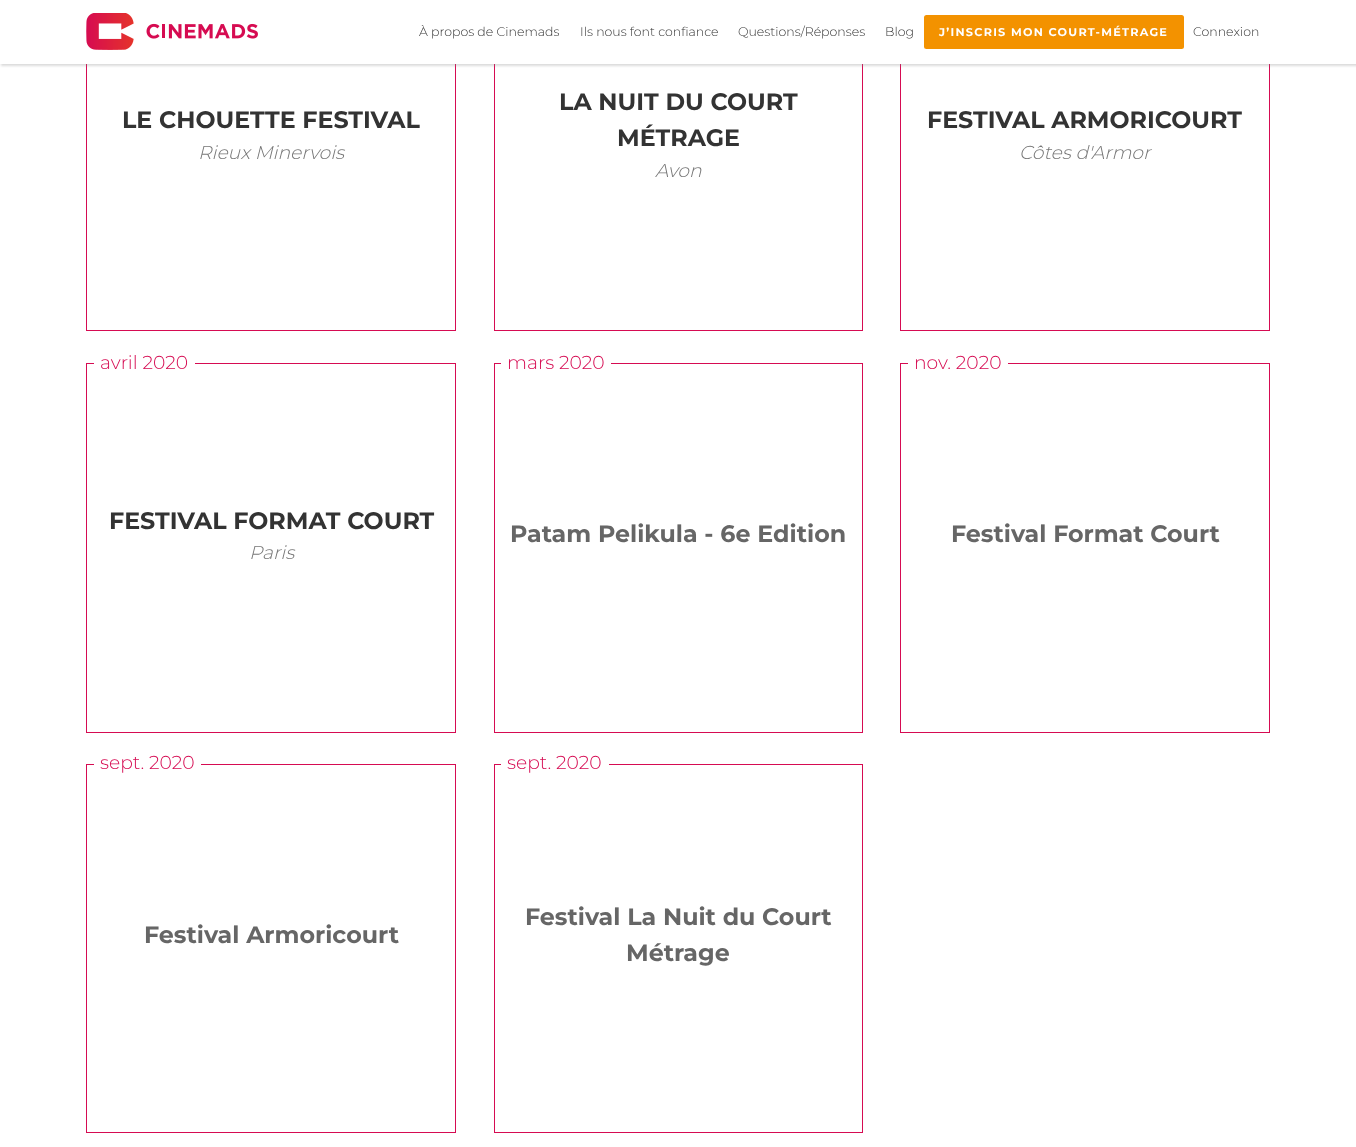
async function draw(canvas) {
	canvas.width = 1356;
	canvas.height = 1147;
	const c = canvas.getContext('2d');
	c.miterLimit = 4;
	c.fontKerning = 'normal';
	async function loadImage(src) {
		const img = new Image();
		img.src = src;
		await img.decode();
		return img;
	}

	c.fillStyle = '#fff';
	c.fillRect(0, 0, 1356, 1147);
	c.strokeStyle = '#d60b52';
	c.strokeRect(86.5, -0.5, 369, 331);
	c.strokeRect(494.5, -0.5, 368, 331);
	c.strokeRect(900.5, -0.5, 369, 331);
	c.fillStyle = '#8c8c8c4d';
	c.filter = 'blur(1px)';
	c.beginPath();
	c.rect(1, 3, 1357, 63);
	c.fill();
	c.filter = 'none';
	c.fillStyle = '#fff';
	c.fillRect(0, 0, 1356, 64);
	c.drawImage(await loadImage('img1.png'), 86, 13, 172, 37);
	c.font = '300 12.5px Montserrat';
	c.fillStyle = '#333';
	for (const [text, x, y] of [
		['À propos de Cinemads', 419, 36],
		['Ils nous font confiance', 580, 36],
		['Questions/Réponses', 738, 36],
		['Blog', 885, 36],
	]) {
		c.fillText(text, x, y);
	}
	c.fillStyle = '#f39200';
	c.beginPath();
	c.roundRect(924, 15, 260, 34, 2.5);
	c.fill();
	c.letterSpacing = '1.25px';
	c.font = 'bold 11.25px Montserrat';
	c.fillStyle = '#fff';
	c.fillText('J’INSCRIS MON COURT-MÉTRAGE', 939, 36);
	c.letterSpacing = '0px';
	c.font = '300 12.5px Montserrat';
	c.fillStyle = '#333';
	c.fillText('Connexion', 1193, 36);
	c.font = 'bold 23.75px Montserrat';
	c.fillText('LE CHOUETTE FESTIVAL', 122, 128);
	c.font = 'italic 300 18.75px Montserrat';
	c.fillStyle = '#777';
	c.fillText('Rieux Minervois', 198, 159);
	c.font = 'bold 23.75px Montserrat';
	c.fillStyle = '#333';
	c.fillText('LA NUIT DU COURT', 559, 110);
	c.fillText('MÉTRAGE', 617, 146);
	c.font = 'italic 300 18.75px Montserrat';
	c.fillStyle = '#777';
	c.fillText('Avon', 655, 177);
	c.font = 'bold 23.75px Montserrat';
	c.fillStyle = '#333';
	c.fillText('FESTIVAL ARMORICOURT', 927, 128);
	c.font = 'italic 300 18.75px Montserrat';
	c.fillStyle = '#777';
	c.fillText('Côtes d\'Armor', 1019, 159);
	c.strokeRect(86.5, 363.5, 369, 369);
	c.fillStyle = '#fff';
	c.fillRect(94, 363, 101, 1);
	c.font = '300 18.75px Montserrat';
	c.fillStyle = '#d60b52';
	c.fillText('avril 2020', 100, 369);
	c.font = 'bold 23.75px Montserrat';
	c.fillStyle = '#333';
	c.fillText('FESTIVAL FORMAT COURT', 109, 529);
	c.font = 'italic 300 18.75px Montserrat';
	c.fillStyle = '#777';
	c.fillText('Paris', 249, 559);
	c.strokeRect(494.5, 363.5, 368, 369);
	c.fillStyle = '#fff';
	c.fillRect(501, 363, 110, 1);
	c.font = '300 18.75px Montserrat';
	c.fillStyle = '#d60b52';
	c.fillText('mars 2020', 507, 369);
	c.font = 'bold 23.75px Montserrat';
	c.fillStyle = '#666';
	c.fillText('Patam Pelikula - 6e Edition', 510, 542);
	c.strokeRect(900.5, 363.5, 369, 369);
	c.fillStyle = '#fff';
	c.fillRect(908, 363, 100, 1);
	c.font = '300 18.75px Montserrat';
	c.fillStyle = '#d60b52';
	c.fillText('nov. 2020', 914, 369);
	c.font = 'bold 23.75px Montserrat';
	c.fillStyle = '#666';
	c.fillText('Festival Format Court', 951, 542);
	c.strokeRect(86.5, 764.5, 369, 368);
	c.fillStyle = '#fff';
	c.fillRect(94, 764, 107, 1);
	c.font = '300 18.75px Montserrat';
	c.fillStyle = '#d60b52';
	c.fillText('sept. 2020', 100, 769);
	c.font = 'bold 23.75px Montserrat';
	c.fillStyle = '#666';
	c.fillText('Festival Armoricourt', 144, 943);
	c.strokeRect(494.5, 764.5, 368, 368);
	c.fillStyle = '#fff';
	c.fillRect(501, 764, 108, 1);
	c.font = '300 18.75px Montserrat';
	c.fillStyle = '#d60b52';
	c.fillText('sept. 2020', 507, 769);
	c.font = 'bold 23.75px Montserrat';
	c.fillStyle = '#666';
	c.fillText('Festival La Nuit du Court', 525, 925);
	c.fillText('Métrage', 626, 961);
}

draw(document.querySelector('canvas'));
